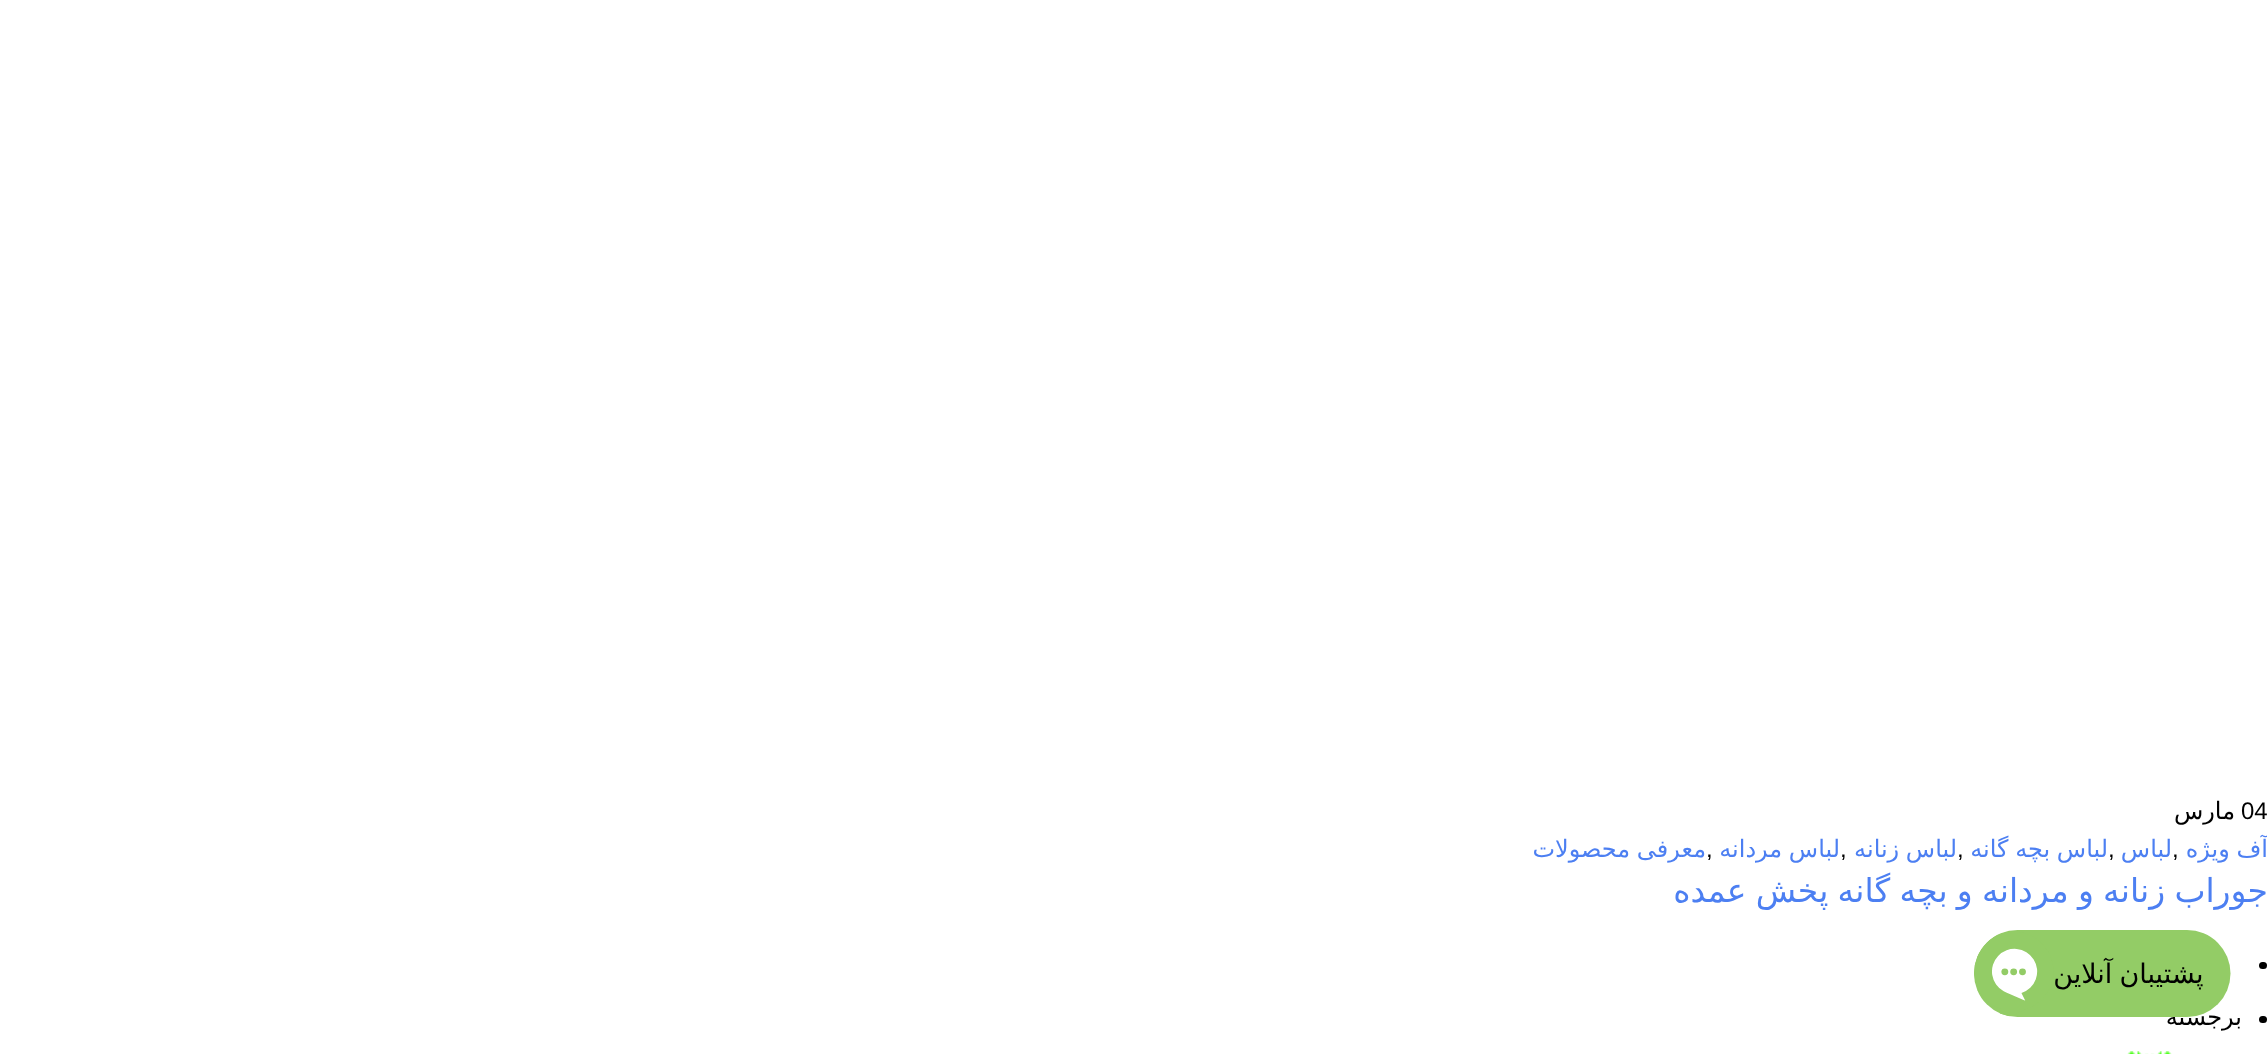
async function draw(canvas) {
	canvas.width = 2267;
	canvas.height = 1054;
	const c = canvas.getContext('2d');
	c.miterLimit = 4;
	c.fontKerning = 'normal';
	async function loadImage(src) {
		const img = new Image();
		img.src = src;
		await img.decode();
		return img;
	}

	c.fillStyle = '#fff';
	c.fillRect(0, 0, 2267, 1054);
	c.font = '24px Liberation Sans';
	c.fillStyle = '#000';
	c.fillText('04', 2241, 819);
	c.direction = 'rtl';
	c.font = '24px DejaVu Sans';
	c.fillText('مارس', 2235, 819);
	c.wordSpacing = '-1px';
	c.fillStyle = '#4c7ff2';
	c.fillText('آف ویژه', 2268, 857);
	c.wordSpacing = '0px';
	c.direction = 'ltr';
	c.font = '24px Liberation Sans';
	c.fillStyle = '#000';
	c.fillText(',', 2172, 857);
	c.direction = 'rtl';
	c.font = '24px DejaVu Sans';
	c.fillStyle = '#4c7ff2';
	c.fillText('لباس', 2172, 857);
	c.direction = 'ltr';
	c.font = '24px Liberation Sans';
	c.fillStyle = '#000';
	c.fillText(',', 2108, 857);
	c.wordSpacing = '-1px';
	c.direction = 'rtl';
	c.font = '24px DejaVu Sans';
	c.fillStyle = '#4c7ff2';
	c.fillText('لباس بچه گانه', 2108, 857);
	c.wordSpacing = '0px';
	c.direction = 'ltr';
	c.font = '24px Liberation Sans';
	c.fillStyle = '#000';
	c.fillText(',', 1957, 857);
	c.wordSpacing = '-1px';
	c.direction = 'rtl';
	c.font = '24px DejaVu Sans';
	c.fillStyle = '#4c7ff2';
	c.fillText('لباس زنانه', 1957, 857);
	c.wordSpacing = '0px';
	c.direction = 'ltr';
	c.font = '24px Liberation Sans';
	c.fillStyle = '#000';
	c.fillText(',', 1840, 857);
	c.wordSpacing = '-1px';
	c.direction = 'rtl';
	c.font = '24px DejaVu Sans';
	c.fillStyle = '#4c7ff2';
	c.fillText('لباس مردانه', 1840, 857);
	c.wordSpacing = '0px';
	c.direction = 'ltr';
	c.font = '24px Liberation Sans';
	c.fillStyle = '#000';
	c.fillText(',', 1706, 857);
	c.wordSpacing = '-1px';
	c.direction = 'rtl';
	c.font = '24px DejaVu Sans';
	c.fillStyle = '#4c7ff2';
	c.fillText('معرفی محصولات', 1706, 857);
	c.wordSpacing = '-1.25px';
	c.font = '33px DejaVu Sans';
	c.fillText('جوراب زنانه و مردانه و بچه گانه پخش عمده', 2268, 902);
	c.fillStyle = '#000';
	c.beginPath();
	c.roundRect(2259, 962, 8, 7, 3.5);
	c.fill();
	c.beginPath();
	c.roundRect(2259, 1016, 8, 7, 3.5);
	c.fill();
	c.wordSpacing = '0px';
	c.font = '24px DejaVu Sans';
	c.fillText('برجسته', 2242, 1025);
	c.drawImage(await loadImage('img1.png'), 2127, 1051, 45, 3);
	c.drawImage(await loadImage('img2.png'), 1974, 930, 257, 87);
}

draw(document.querySelector('canvas'));
